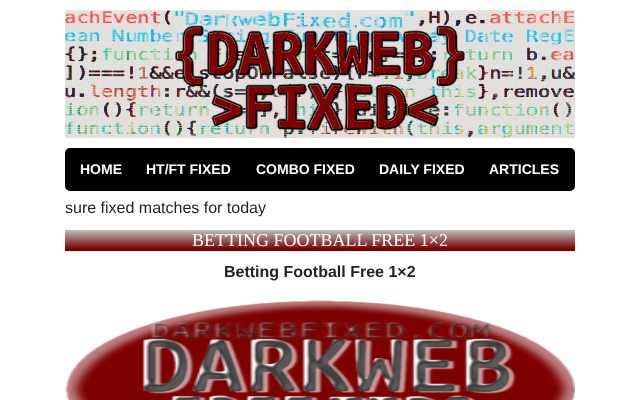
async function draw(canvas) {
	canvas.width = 639;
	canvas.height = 400;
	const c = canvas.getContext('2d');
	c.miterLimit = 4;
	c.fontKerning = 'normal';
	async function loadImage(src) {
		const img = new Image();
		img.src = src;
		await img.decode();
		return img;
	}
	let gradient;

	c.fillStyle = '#fff';
	c.fillRect(0, 0, 639, 400);
	c.drawImage(await loadImage('img1.png'), 65, 10, 510, 128);
	c.fillStyle = '#000';
	c.beginPath();
	c.roundRect(65, 148, 510, 43, 5);
	c.fill();
	c.font = 'bold 14px Liberation Sans';
	c.fillStyle = '#fff';
	for (const [text, x, y] of [
		['HOME', 80, 174],
		['HT/FT FIXED', 146, 174],
		['COMBO FIXED', 256, 174],
		['DAILY FIXED', 379, 174],
		['ARTICLES', 489, 174],
	]) {
		c.fillText(text, x, y);
	}
	c.font = '16px Liberation Sans';
	c.fillStyle = '#212529';
	c.fillText('sure fixed matches for today', 65, 213);
	gradient = c.createLinearGradient(320, 230, 320, 251);
	gradient.addColorStop(0, '#bfbfbf');
	gradient.addColorStop(0.9, '#790202');
	c.fillStyle = gradient;
	c.fillRect(65, 230, 510, 21);
	c.fillStyle = '#f3f3f3';
	c.fillRect(65, 251, 510, 1);
	c.font = '18px Liberation Serif';
	c.fillStyle = '#fff';
	c.fillText('BETTING FOOTBALL FREE 1×2', 192, 246);
	c.font = 'bold 16px Liberation Sans';
	c.fillStyle = '#212529';
	c.fillText('Betting Football Free 1×2', 224, 277);
	c.drawImage(await loadImage('img2.png'), 65, 300, 510, 100);
}

draw(document.querySelector('canvas'));
